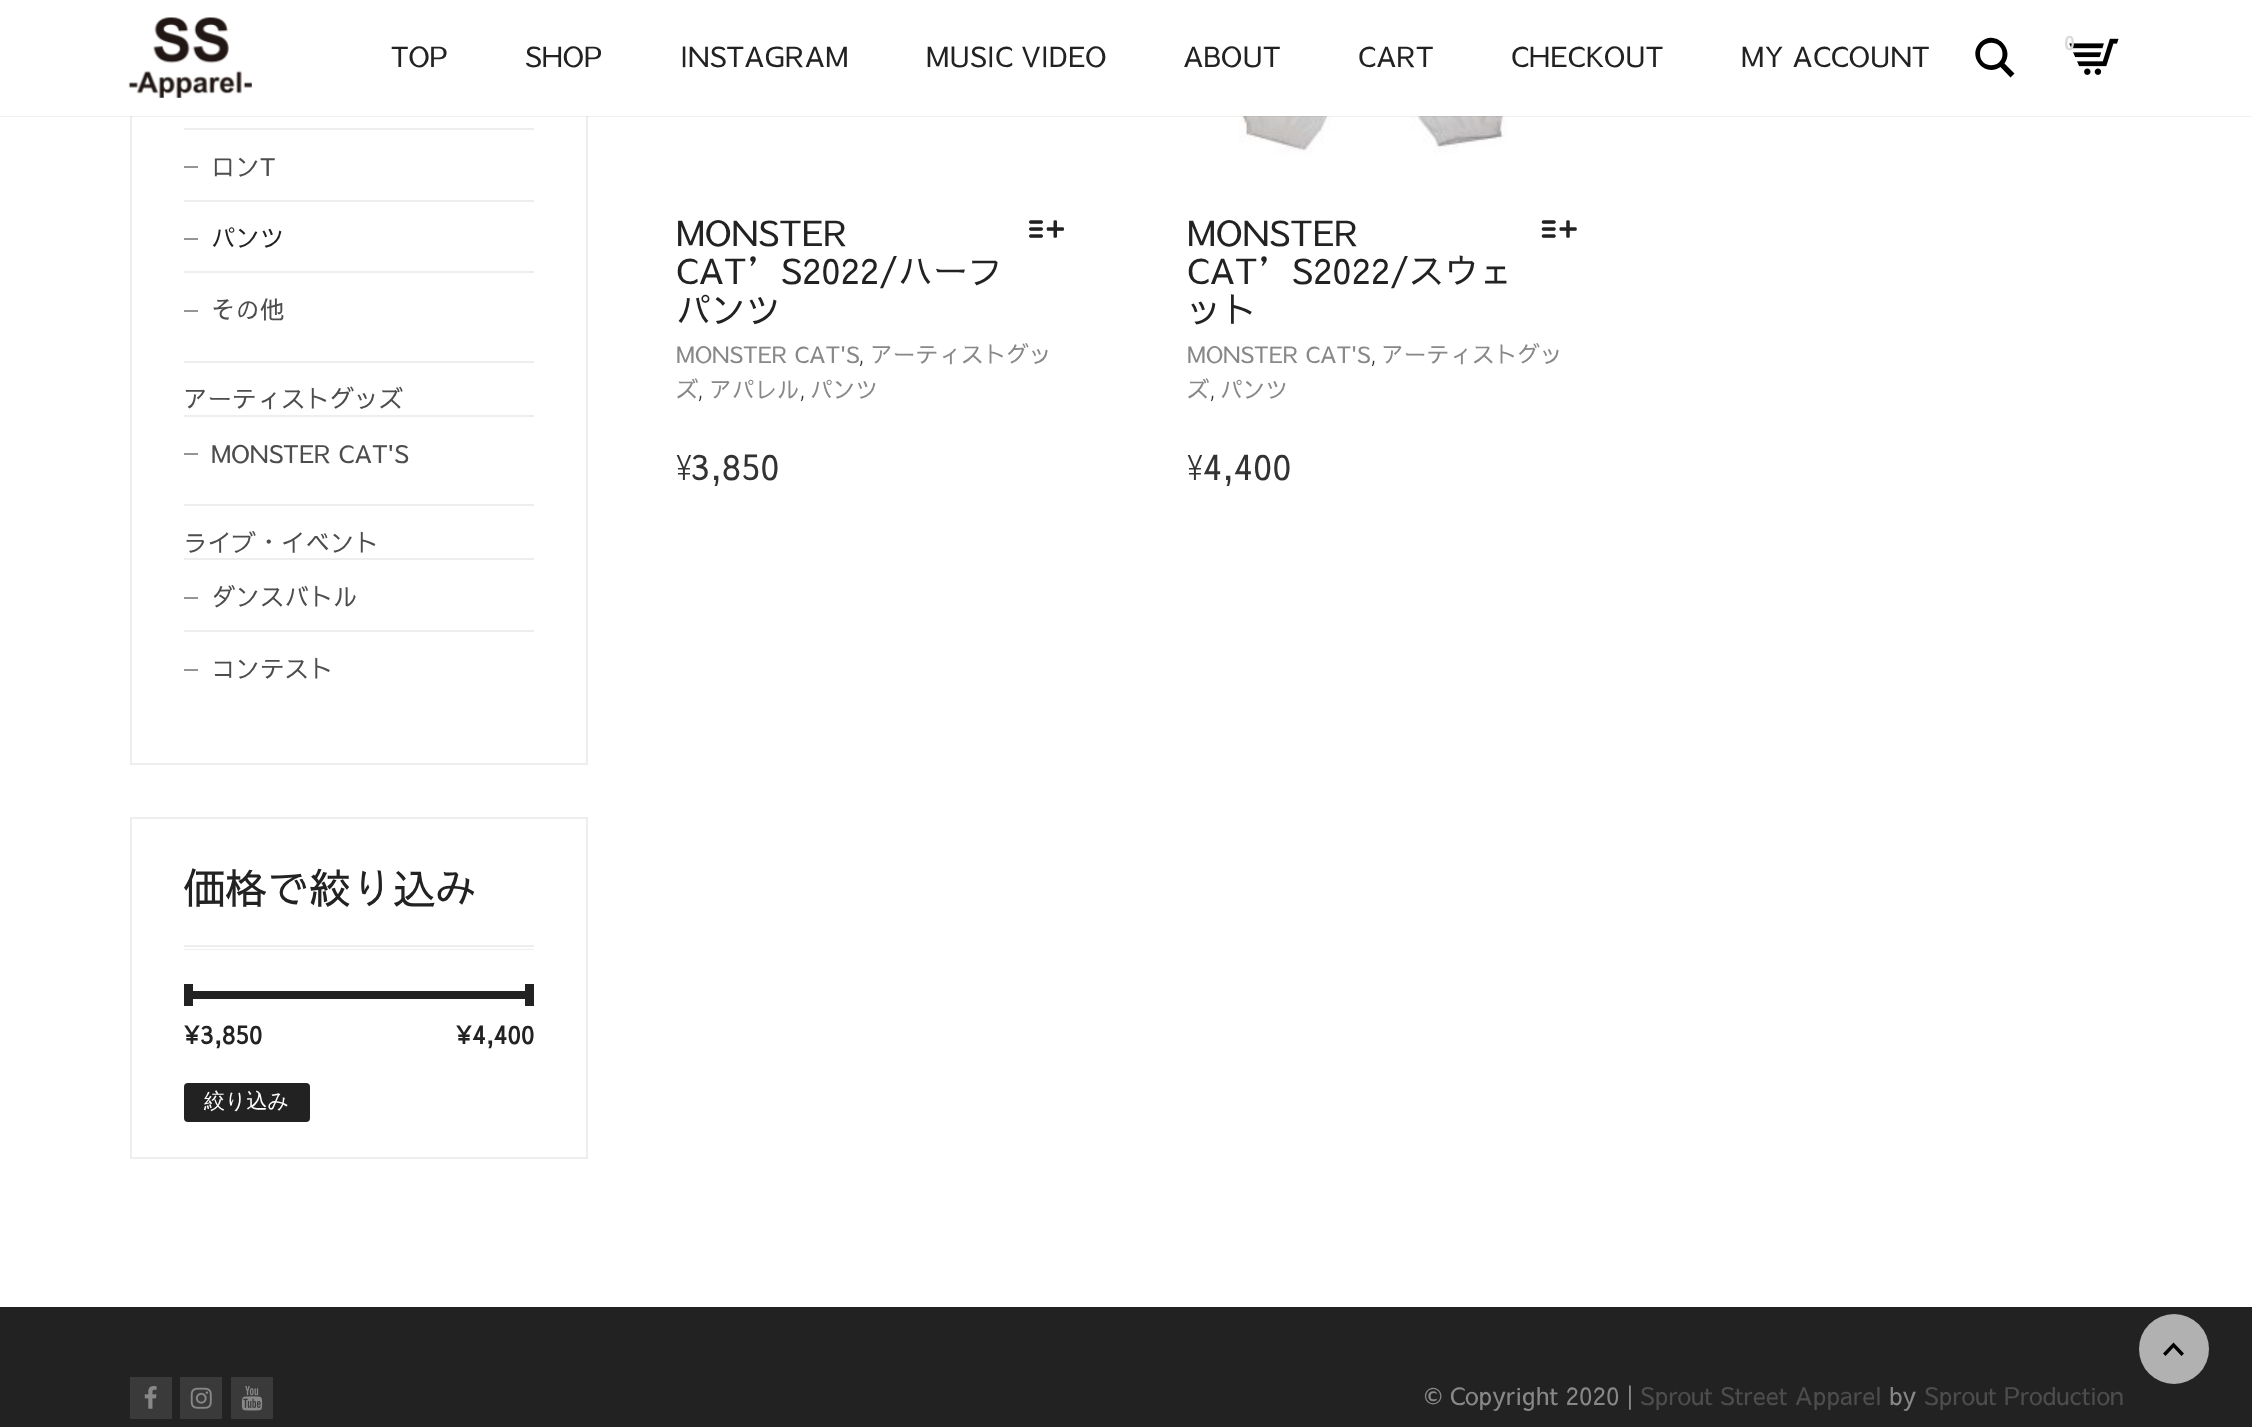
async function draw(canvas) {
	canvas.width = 2252;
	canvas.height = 1427;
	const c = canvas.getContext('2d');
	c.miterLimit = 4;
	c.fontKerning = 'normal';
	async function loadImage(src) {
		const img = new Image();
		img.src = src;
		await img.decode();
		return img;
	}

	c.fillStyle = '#fff';
	c.fillRect(0, 0, 2252, 1427);
	c.strokeStyle = '#eee';
	c.lineWidth = 2;
	c.strokeRect(131, -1, 456, 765);
	c.drawImage(await loadImage('img3.png'), 677, 116, 399, 1);
	c.drawImage(await loadImage('img5.png'), 1238, 116, 269, 39);
	c.fillStyle = '#0000000d';
	c.fillRect(0, 116, 2252, 1);
	c.fillStyle = '#fff';
	c.fillRect(130, 0, 458, 116);
	c.drawImage(await loadImage('img1.png'), 128, 17, 124, 81);
	c.fillStyle = '#000';
	c.beginPath();
	c.moveTo(2014.5, 73.5);
	c.lineTo(2004.5, 63.5);
	c.bezierCurveTo(2015.5, 48, 1994, 28.5, 1980, 42.5);
	c.bezierCurveTo(1966.5, 56.5, 1985, 78, 2000.5, 67);
	c.lineTo(2010.5, 77.5);
	c.closePath();
	c.moveTo(1980, 54);
	c.bezierCurveTo(1980, 39, 2002.5, 39, 2002.5, 54);
	c.bezierCurveTo(2002.5, 69, 1980, 69, 1980, 54);
	c.closePath();
	c.fill();
	c.drawImage(await loadImage('img2.png'), 2069, 38, 50, 37);
	c.font = 'bold 19px Sawarabi Gothic';
	c.fillStyle = '#d8d8d8';
	c.fillText('0', 2064, 50);
	c.font = '28px Sawarabi Gothic';
	c.fillStyle = '#222';
	for (const [text, x, y] of [
		['TOP', 391, 67],
		['SHOP', 525, 67],
		['INSTAGRAM', 680, 67],
		['MUSIC VIDEO', 926, 67],
		['ABOUT', 1183, 67],
		['CART', 1358, 67],
		['CHECKOUT', 1511, 67],
		['MY ACCOUNT', 1741, 67],
	]) {
		c.fillText(text, x, y);
	}
	for (const [x, y, w, h, color] of [
		[184, 361, 350, 2, '#eee'],
		[184, 128, 350, 2, '#eee'],
		[184, 200, 350, 2, '#eee'],
		[184, 166, 14, 2, '#959595'],
	]) {
		c.fillStyle = color;
		c.fillRect(x, y, w, h);
	}
	c.font = '24.5px Sawarabi Gothic';
	c.fillStyle = '#4d4d4d';
	c.fillText('ロンT', 211, 176);
	c.fillStyle = '#eee';
	c.fillRect(184, 271, 350, 2);
	c.fillStyle = '#959595';
	c.fillRect(184, 238, 14, 2);
	c.fillStyle = '#222';
	c.fillText('パンツ', 211, 247);
	c.fillStyle = '#959595';
	c.fillRect(184, 310, 14, 2);
	c.fillStyle = '#4d4d4d';
	c.fillText('その他', 211, 319);
	c.fillStyle = '#eee';
	c.fillRect(184, 504, 350, 2);
	c.fillStyle = '#4d4d4d';
	c.fillText('アーティストグッズ', 183, 408);
	c.fillStyle = '#eee';
	c.fillRect(184, 415, 350, 2);
	c.fillStyle = '#959595';
	c.fillRect(184, 453, 14, 2);
	c.fillStyle = '#4d4d4d';
	c.fillText('MONSTER CAT\'S', 211, 463);
	c.fillText('ライブ・イベント', 183, 552);
	for (const [x, y, w, h, color] of [
		[184, 558, 350, 2, '#eee'],
		[184, 630, 350, 2, '#eee'],
		[184, 597, 14, 2, '#959595'],
	]) {
		c.fillStyle = color;
		c.fillRect(x, y, w, h);
	}
	c.fillStyle = '#4d4d4d';
	c.fillText('ダンスバトル', 211, 606);
	c.fillStyle = '#959595';
	c.fillRect(184, 669, 14, 2);
	c.fillStyle = '#4d4d4d';
	c.fillText('コンテスト', 211, 678);
	c.strokeRect(131, 818, 456, 340);
	c.fillStyle = '#eee';
	c.beginPath();
	c.moveTo(184, 947);
	c.lineTo(184, 950);
	c.lineTo(534, 950);
	c.lineTo(534, 866);
	c.lineTo(534, 947);
	c.closePath();
	c.fill();
	c.fillStyle = '#fff';
	c.beginPath();
	c.moveTo(184, 947);
	c.lineTo(184, 949);
	c.lineTo(534, 949);
	c.lineTo(534, 865);
	c.lineTo(534, 947);
	c.closePath();
	c.fill();
	c.fillStyle = '#eee';
	c.fillRect(184, 945, 350, 2);
	c.font = '42px Sawarabi Gothic';
	c.fillStyle = '#222';
	c.fillText('価格で絞り込み', 183, 904);
	for (const [x, y, w, h, color] of [
		[184, 984, 9, 22, '#222'],
		[193, 991, 332, 8, '#222'],
		[525, 984, 9, 22, '#222'],
	]) {
		c.fillStyle = color;
		c.fillRect(x, y, w, h);
	}
	c.font = 'bold 24.5px Sawarabi Gothic';
	c.fillText('¥3,850', 183, 1044);
	c.fillText('¥4,400', 455, 1044);
	c.beginPath();
	c.roundRect(184, 1083, 126, 39, 4);
	c.fill();
	c.font = '500 21px WenQuanYi Zen Hei';
	c.fillStyle = '#fff';
	c.fillText('絞り込み', 204, 1108);
	c.font = '35px Sawarabi Gothic';
	c.fillStyle = '#222';
	for (const [text, x, y] of [
		['MONSTER', 676, 246],
		['CAT’S2022/ハーフ', 676, 284],
		['パンツ', 676, 323],
	]) {
		c.fillText(text, x, y);
	}
	c.drawImage(await loadImage('img4.png'), 1029, 220, 35, 18);
	c.font = '22.75px Sawarabi Gothic';
	c.fillStyle = '#888';
	c.fillText('MONSTER CAT\'S', 676, 363);
	c.font = '300 24.5px Roboto Condensed';
	c.fillStyle = '#333';
	c.fillText(',', 859, 363);
	c.font = '22.75px Sawarabi Gothic';
	c.fillStyle = '#888';
	c.fillText('アーティストグッ', 870, 363);
	c.fillText('ズ', 676, 398);
	c.font = '300 24.5px Roboto Condensed';
	c.fillStyle = '#333';
	c.fillText(',', 698, 398);
	c.font = '22.75px Sawarabi Gothic';
	c.fillStyle = '#888';
	c.fillText('アパレル', 709, 398);
	c.font = '300 24.5px Roboto Condensed';
	c.fillStyle = '#333';
	c.fillText(',', 800, 398);
	c.font = '22.75px Sawarabi Gothic';
	c.fillStyle = '#888';
	c.fillText('パンツ', 810, 398);
	c.font = '300 35px Roboto Condensed';
	c.fillStyle = '#333';
	c.fillText('¥', 676, 480);
	c.font = '35px Sawarabi Gothic';
	c.fillText('3,850', 691, 480);
	c.fillStyle = '#222';
	for (const [text, x, y] of [
		['MONSTER', 1187, 246],
		['CAT’S2022/スウェ', 1187, 284],
		['ット', 1187, 323],
	]) {
		c.fillText(text, x, y);
	}
	c.drawImage(await loadImage('img6.png'), 1541, 220, 36, 18);
	c.font = '22.75px Sawarabi Gothic';
	c.fillStyle = '#888';
	c.fillText('MONSTER CAT\'S', 1187, 363);
	c.font = '300 24.5px Roboto Condensed';
	c.fillStyle = '#333';
	c.fillText(',', 1371, 363);
	c.font = '22.75px Sawarabi Gothic';
	c.fillStyle = '#888';
	c.fillText('アーティストグッ', 1381, 363);
	c.fillText('ズ', 1187, 398);
	c.font = '300 24.5px Roboto Condensed';
	c.fillStyle = '#333';
	c.fillText(',', 1210, 398);
	c.font = '22.75px Sawarabi Gothic';
	c.fillStyle = '#888';
	c.fillText('パンツ', 1220, 398);
	c.font = '300 35px Roboto Condensed';
	c.fillStyle = '#333';
	c.fillText('¥', 1187, 480);
	c.font = '35px Sawarabi Gothic';
	c.fillText('4,400', 1203, 480);
	c.fillStyle = '#222';
	c.fillRect(0, 1307, 2252, 120);
	c.fillStyle = '#b1b1b1';
	c.beginPath();
	c.arc(2174, 1349, 35, 0, 2 * Math.PI);
	c.fill();
	c.fillStyle = '#000';
	c.beginPath();
	c.moveTo(2163, 1353.5);
	c.lineTo(2165.5, 1356);
	c.lineTo(2173.5, 1347.5);
	c.lineTo(2181.5, 1356);
	c.lineTo(2184, 1353.5);
	c.lineTo(2173.5, 1342.5);
	c.closePath();
	c.fill();
	c.fillStyle = '#3a3a3a';
	c.fillRect(130, 1377, 42, 42);
	c.drawImage(await loadImage('img7.png'), 144, 1386, 13, 23);
	c.fillRect(180, 1377, 42, 42);
	c.drawImage(await loadImage('img8.png'), 190, 1387, 22, 22);
	c.fillRect(231, 1377, 42, 42);
	c.drawImage(await loadImage('img9.png'), 241, 1386, 22, 25);
	c.font = '24.5px Sawarabi Gothic';
	c.fillStyle = '#888';
	c.fillText('© Copyright 2020 |', 1424, 1405);
	c.fillStyle = '#4d4d4d';
	c.fillText('Sprout Street Apparel', 1640, 1405);
	c.fillStyle = '#888';
	c.fillText('by', 1889, 1405);
	c.fillStyle = '#4d4d4d';
	c.fillText('Sprout Production', 1924, 1405);
}

draw(document.querySelector('canvas'));
